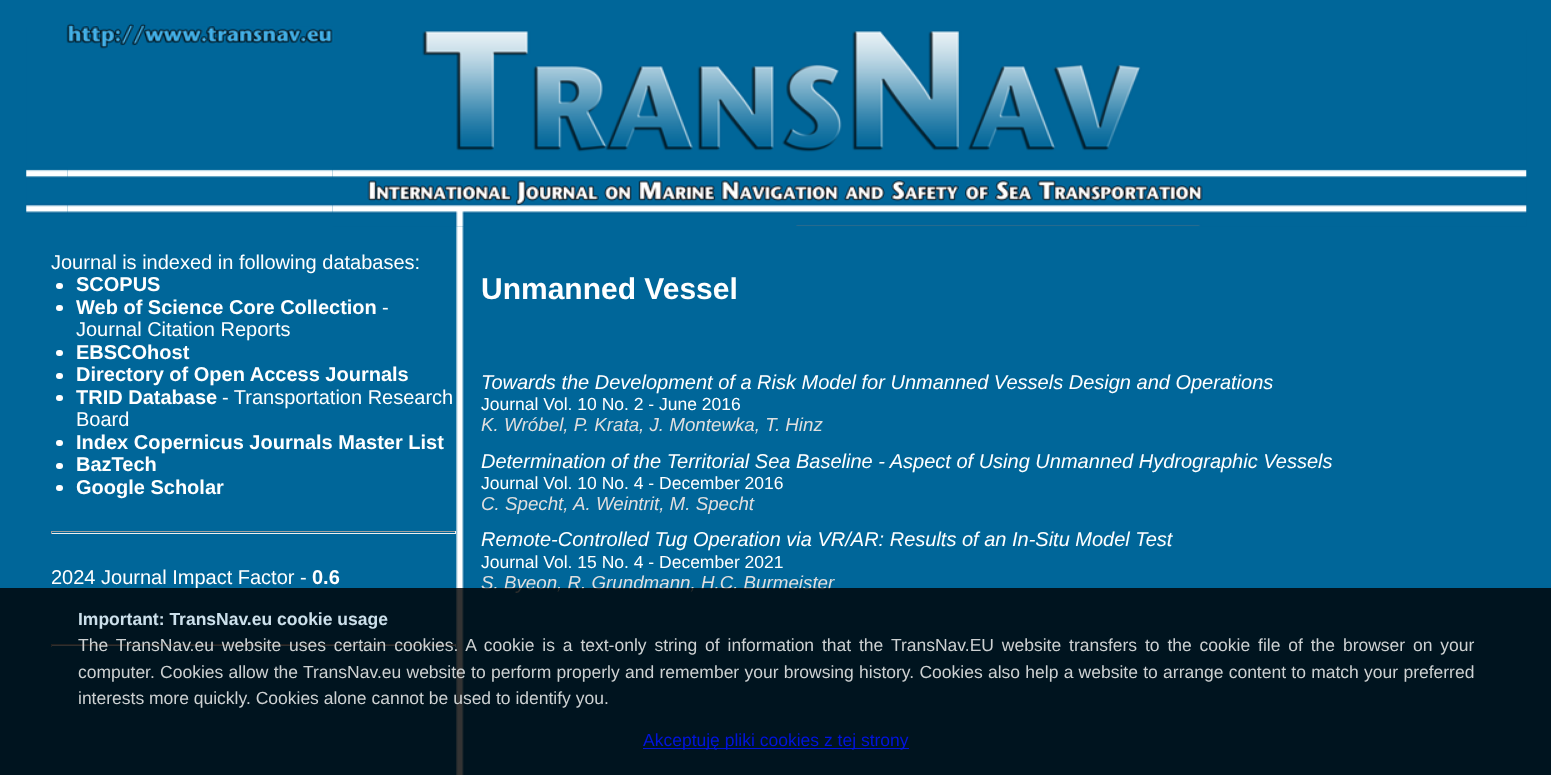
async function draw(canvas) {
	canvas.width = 1551;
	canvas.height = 775;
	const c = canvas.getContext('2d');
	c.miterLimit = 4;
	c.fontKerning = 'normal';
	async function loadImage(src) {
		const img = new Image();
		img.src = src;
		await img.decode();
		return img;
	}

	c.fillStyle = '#069';
	c.fillRect(0, 0, 1551, 775);
	c.drawImage(await loadImage('img1.png'), 67, 23, 147, 4);
	c.drawImage(await loadImage('img2.png'), 26, 27, 42, 187);
	c.drawImage(await loadImage('img3.png'), 67, 26, 266, 23);
	c.drawImage(await loadImage('img4.png'), 67, 169, 266, 45);
	c.drawImage(await loadImage('img5.png'), 332, 30, 1195, 197);
	c.fillStyle = '#1974a2';
	c.fillRect(456, 226, 1, 1);
	c.font = '20px Liberation Sans';
	c.fillStyle = '#fff';
	c.fillText('Journal is indexed in following databases:', 51, 269);
	c.beginPath();
	c.roundRect(56, 283, 7, 6, 3);
	c.fill();
	c.font = 'bold 20px Liberation Sans';
	c.fillText('SCOPUS', 76, 291);
	c.beginPath();
	c.roundRect(56, 305, 7, 6, 3);
	c.fill();
	c.fillText('Web of Science Core Collection', 76, 314);
	c.font = '20px Liberation Sans';
	c.fillText('-', 382, 314);
	c.fillText('Journal Citation Reports', 76, 336);
	c.beginPath();
	c.roundRect(56, 350, 7, 6, 3);
	c.fill();
	c.font = 'bold 20px Liberation Sans';
	c.fillText('EBSCOhost', 76, 359);
	c.beginPath();
	c.roundRect(56, 373, 7, 6, 3);
	c.fill();
	c.fillText('Directory of Open Access Journals', 76, 381);
	c.beginPath();
	c.roundRect(56, 395, 7, 6, 3);
	c.fill();
	c.fillText('TRID Database', 76, 404);
	c.font = '20px Liberation Sans';
	c.fillText('- Transportation Research', 222, 404);
	c.fillText('Board', 76, 426);
	c.beginPath();
	c.roundRect(56, 440, 7, 6, 3);
	c.fill();
	c.font = 'bold 20px Liberation Sans';
	c.fillText('Index Copernicus Journals Master List', 76, 449);
	c.beginPath();
	c.roundRect(56, 463, 7, 6, 3);
	c.fill();
	c.fillText('BazTech', 76, 471);
	c.beginPath();
	c.roundRect(56, 485, 7, 6, 3);
	c.fill();
	c.fillText('Google Scholar', 76, 494);
	for (const [x, y, w, h, color] of [
		[51, 531, 405, 1, '#9f9f9f'],
		[455, 531, 1, 3, '#eee'],
		[51, 533, 405, 1, '#eee'],
		[51, 531, 1, 3, '#9f9f9f'],
	]) {
		c.fillStyle = color;
		c.fillRect(x, y, w, h);
	}
	c.font = '20px Liberation Sans';
	c.fillStyle = '#fff';
	c.fillText('2024 Journal Impact Factor -', 51, 584);
	c.font = 'bold 20px Liberation Sans';
	c.fillText('0.6', 312, 584);
	for (const [x, y, w, h, color] of [
		[51, 644, 405, 1, '#9f9f9f'],
		[455, 644, 1, 3, '#eee'],
		[51, 645, 405, 1, '#eee'],
		[51, 644, 1, 3, '#9f9f9f'],
	]) {
		c.fillStyle = color;
		c.fillRect(x, y, w, h);
	}
	c.drawImage(await loadImage('img6.png'), 456, 226, 743, 549);
	c.font = 'bold 30px Liberation Sans';
	c.fillStyle = '#fff';
	c.fillText('Unmanned Vessel', 481, 299);
	c.font = 'italic 20px Liberation Sans';
	c.fillText('Towards the Development of a Risk Model for Unmanned Vessels Design and Operations', 481, 389);
	c.font = '17.5px Liberation Sans';
	c.fillText('Journal Vol. 10 No. 2 - June 2016', 481, 410);
	c.font = 'italic 18.75px Liberation Sans';
	c.fillStyle = '#dfdfdf';
	c.fillText('K. Wróbel, P. Krata, J. Montewka, T. Hinz', 481, 431);
	c.font = 'italic 20px Liberation Sans';
	c.fillStyle = '#fff';
	c.fillText('Determination of the Territorial Sea Baseline - Aspect of Using Unmanned Hydrographic Vessels', 481, 468);
	c.font = '17.5px Liberation Sans';
	c.fillText('Journal Vol. 10 No. 4 - December 2016', 481, 489);
	c.font = 'italic 18.75px Liberation Sans';
	c.fillStyle = '#dfdfdf';
	c.fillText('C. Specht, A. Weintrit, M. Specht', 481, 510);
	c.font = 'italic 20px Liberation Sans';
	c.fillStyle = '#fff';
	c.fillText('Remote-Controlled Tug Operation via VR/AR: Results of an In-Situ Model Test', 481, 546);
	c.font = '17.5px Liberation Sans';
	c.fillText('Journal Vol. 15 No. 4 - December 2021', 481, 568);
	c.font = 'italic 18.75px Liberation Sans';
	c.fillStyle = '#dfdfdf';
	c.fillText('S. Byeon, R. Grundmann, H.C. Burmeister', 481, 589);
	c.fillStyle = '#000000cc';
	c.fillRect(0, 588, 1551, 187);
	c.font = 'bold 17.5px Liberation Sans';
	c.fillStyle = '#cce0eb';
	c.fillText('Important: TransNav.eu cookie usage', 78, 625);
	c.wordSpacing = '3px';
	c.font = '17.5px Liberation Sans';
	c.fillStyle = '#cdd1d2';
	c.fillText('The TransNav.eu website uses certain cookies. A cookie is a text-only string of information that the TransNav.EU website transfers to the cookie file of the browser on your', 78, 651);
	c.wordSpacing = '0.4px';
	c.fillText('computer. Cookies allow the TransNav.eu website to perform properly and remember your browsing history. Cookies also help a website to arrange content to match your preferred', 78, 678);
	c.wordSpacing = '0px';
	c.fillText('interests more quickly. Cookies alone cannot be used to identify you.', 78, 704);
	c.fillStyle = '#0014dd';
	c.fillRect(643, 748, 266, 1);
	c.fillText('Akceptuję pliki cookies z tej strony', 643, 746);
}

draw(document.querySelector('canvas'));
